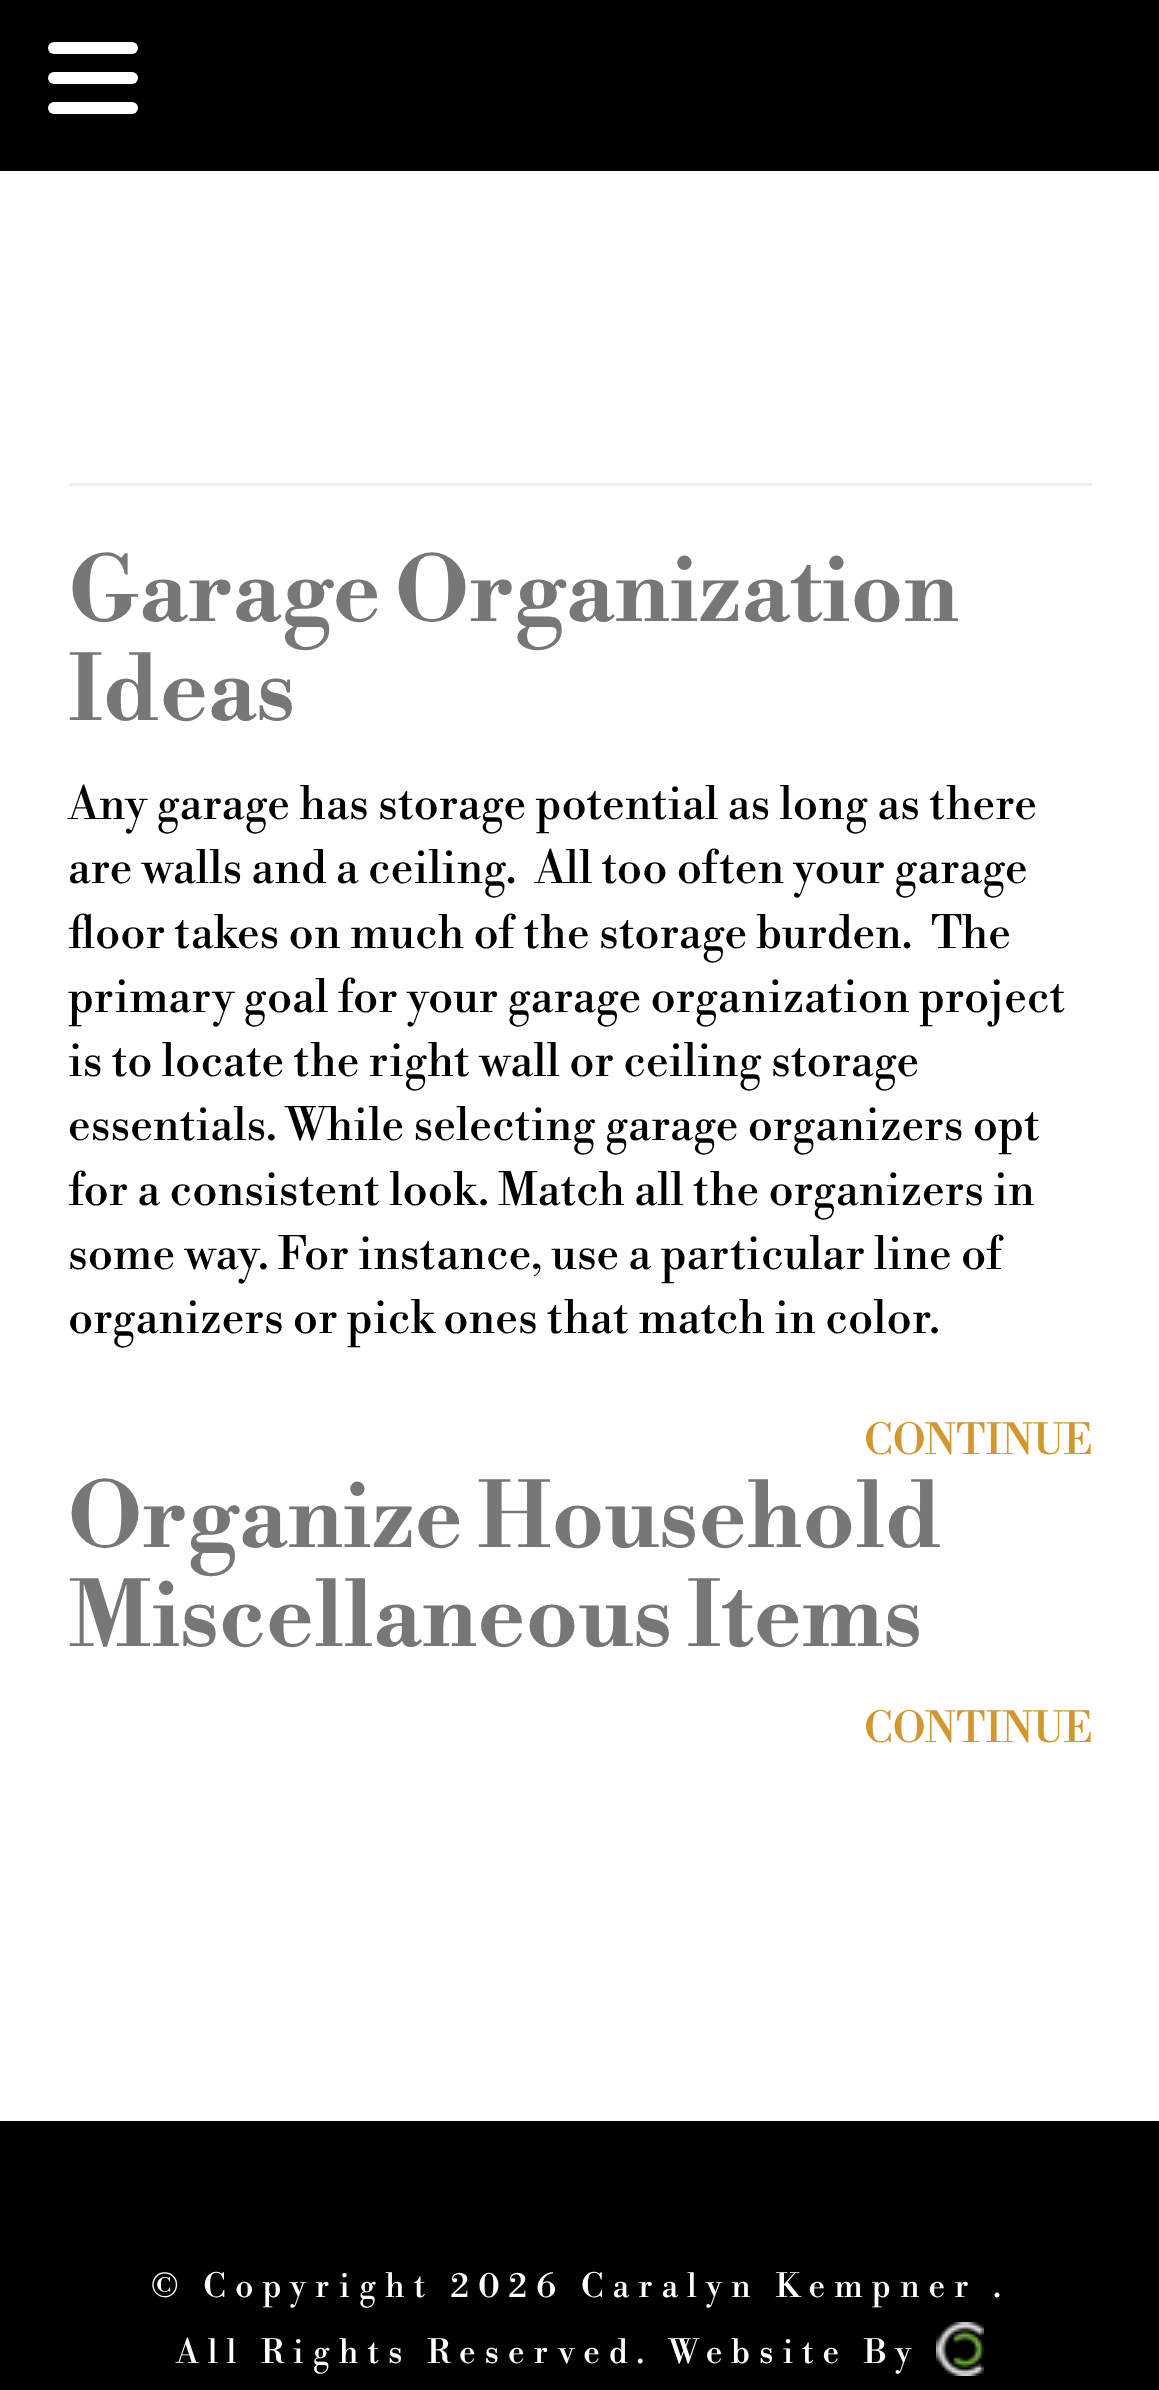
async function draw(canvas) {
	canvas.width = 1159;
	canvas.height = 2390;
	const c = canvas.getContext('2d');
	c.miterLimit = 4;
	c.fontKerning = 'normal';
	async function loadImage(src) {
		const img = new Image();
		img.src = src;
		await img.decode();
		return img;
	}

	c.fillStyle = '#fff';
	c.fillRect(0, 0, 1159, 2390);
	c.fillStyle = '#000';
	c.fillRect(0, 0, 1159, 171);
	c.fillStyle = '#fff';
	c.beginPath();
	c.roundRect(48, 42, 90, 12, 6);
	c.fill();
	c.beginPath();
	c.roundRect(48, 72, 90, 12, 6);
	c.fill();
	c.beginPath();
	c.roundRect(48, 102, 90, 12, 6);
	c.fill();
	c.fillStyle = '#eee';
	c.fillRect(69, 483, 1023, 3);
	c.font = 'bold 90px Libre Bodoni';
	c.fillStyle = '#777';
	c.fillText('Garage Organization', 68, 621);
	c.fillText('Ideas', 68, 720);
	c.font = '45px Libre Bodoni';
	c.fillStyle = '#000';
	for (const [text, x, y] of [
		['Any garage has storage potential as long as there', 68, 819],
		['are walls and a ceiling.  All too often your garage', 68, 883],
		['floor takes on much of the storage burden.  The', 68, 948],
		['primary goal for your garage organization project', 68, 1012],
		['is to locate the right wall or ceiling storage', 68, 1076],
		['essentials. While selecting garage organizers opt', 68, 1140],
		['for a consistent look. Match all the organizers in', 68, 1205],
		['some way. For instance, use a particular line of', 68, 1269],
		['organizers or pick ones that match in color.', 68, 1333],
	]) {
		c.fillText(text, x, y);
	}
	c.font = '42px Libre Bodoni';
	c.fillStyle = '#d19730';
	c.fillText('CONTINUE', 864, 1454);
	c.font = 'bold 90px Libre Bodoni';
	c.fillStyle = '#777';
	c.fillText('Organize Household', 68, 1547);
	c.fillText('Miscellaneous Items', 68, 1646);
	c.font = '42px Libre Bodoni';
	c.fillStyle = '#d19730';
	c.fillText('CONTINUE', 864, 1742);
	c.fillStyle = '#000';
	c.fillRect(0, 2121, 1159, 269);
	c.letterSpacing = '9px';
	c.font = '33px Libre Bodoni';
	c.fillStyle = '#fff';
	c.fillText('© Copyright 2026 Caralyn Kempner .', 151, 2297);
	c.fillText('All Rights Reserved. Website By', 176, 2363);
	c.drawImage(await loadImage('img1.png'), 936, 2322, 48, 54);
}

draw(document.querySelector('canvas'));
